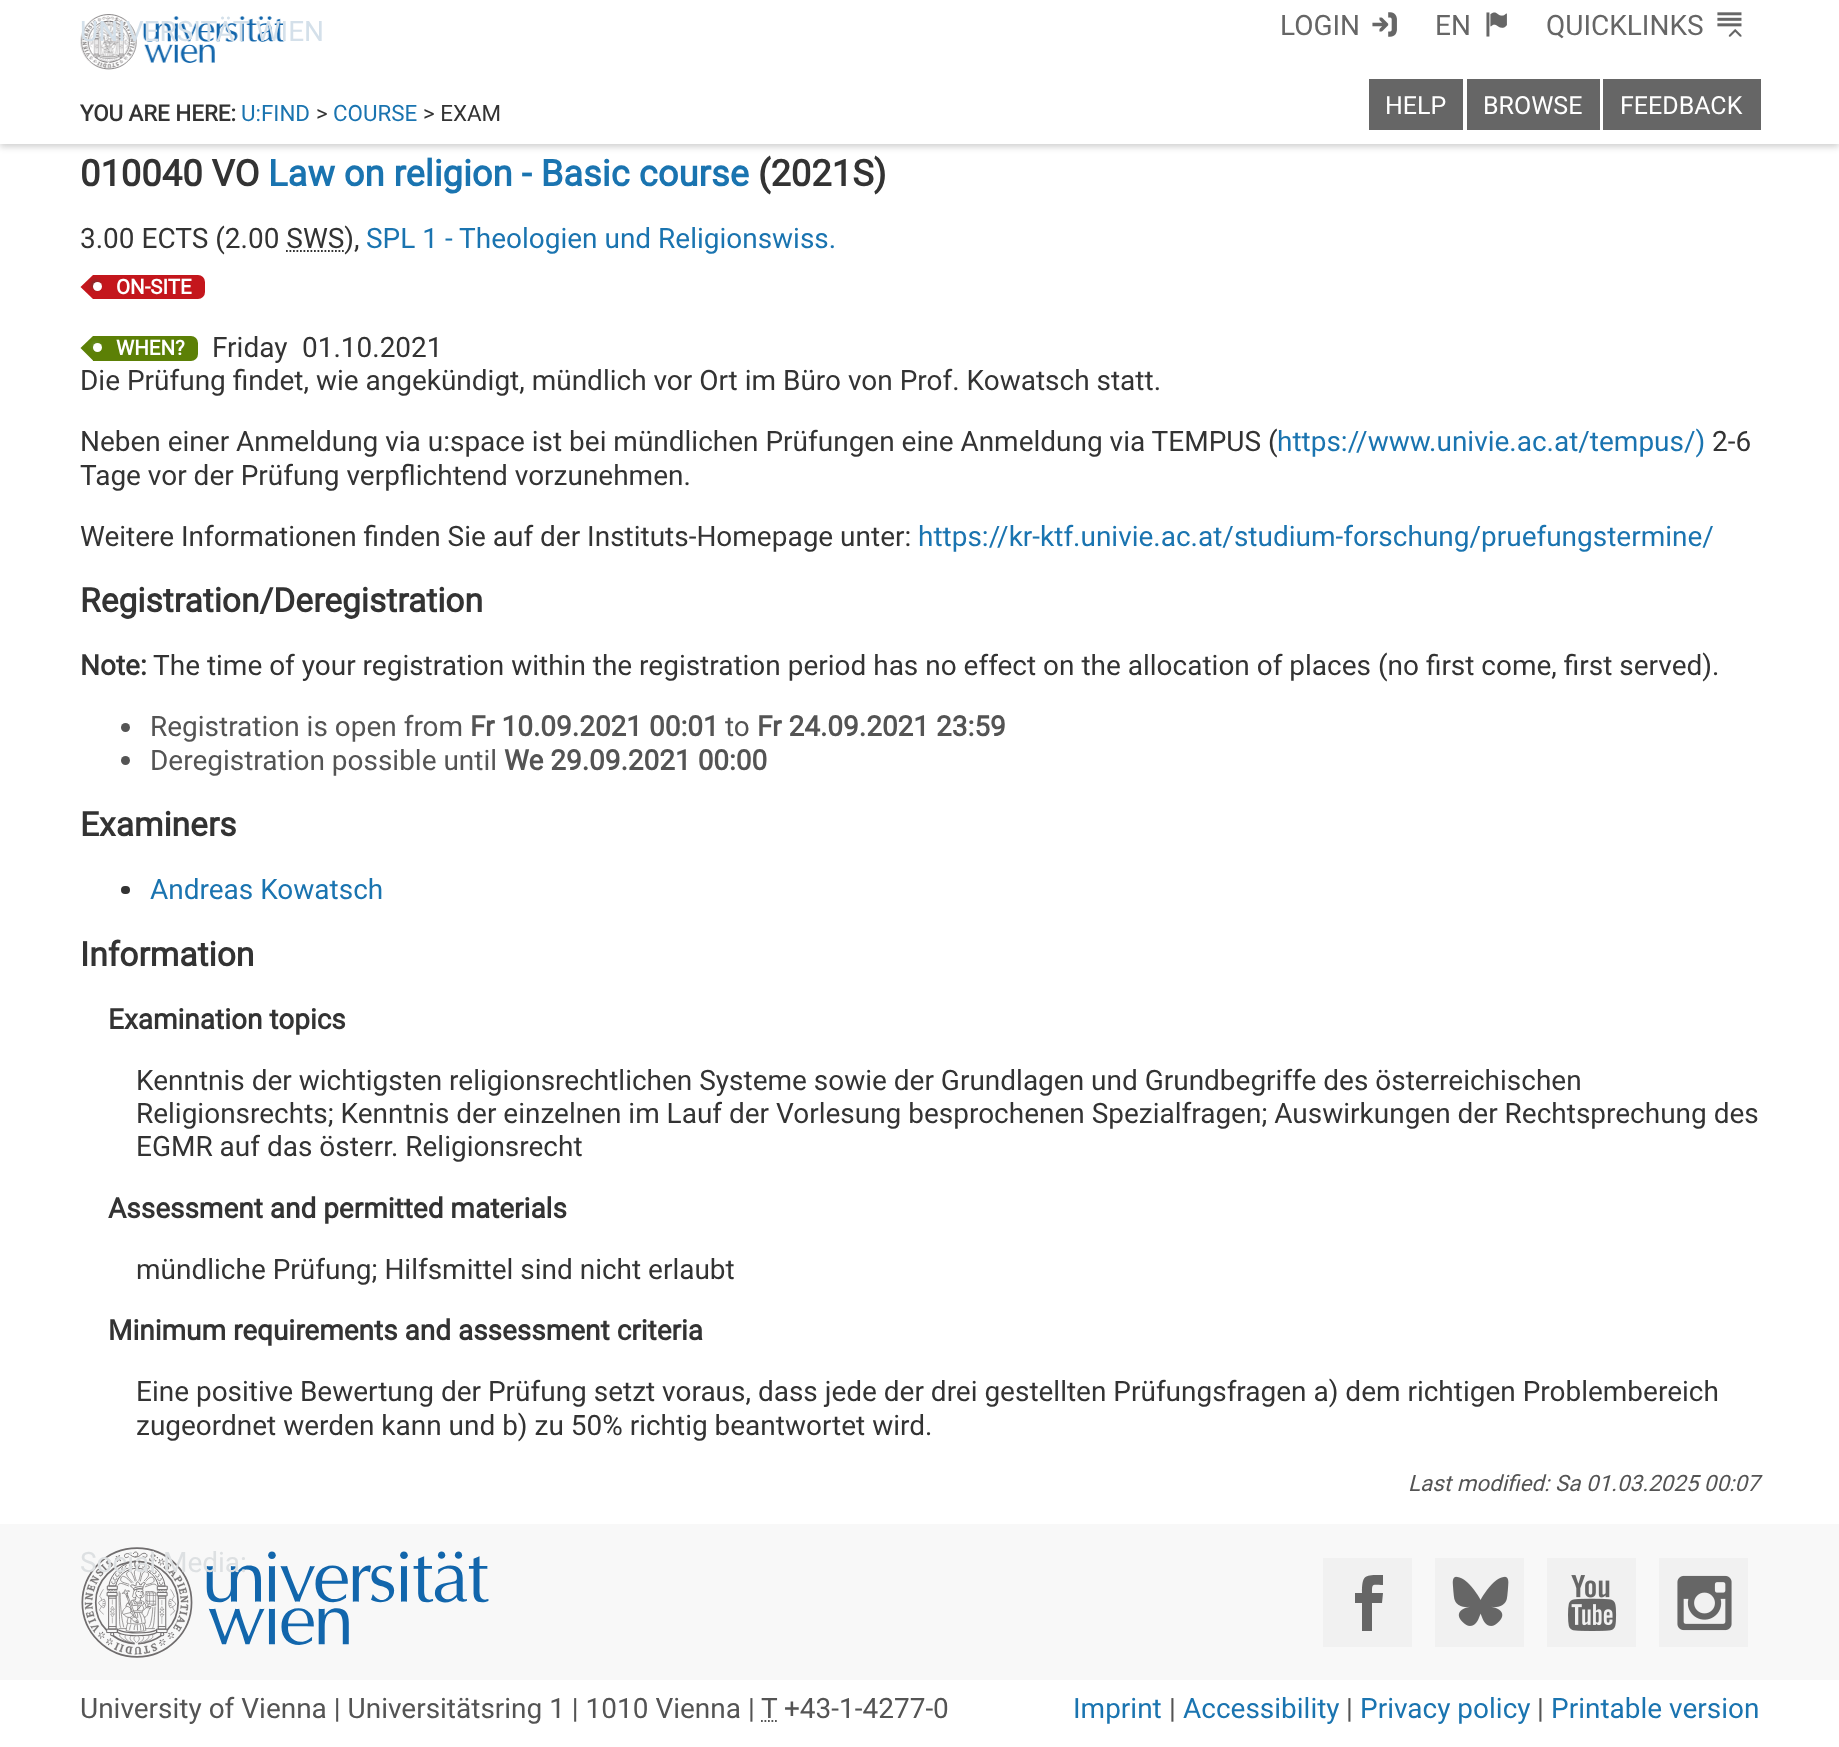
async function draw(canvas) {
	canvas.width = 1839;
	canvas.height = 1747;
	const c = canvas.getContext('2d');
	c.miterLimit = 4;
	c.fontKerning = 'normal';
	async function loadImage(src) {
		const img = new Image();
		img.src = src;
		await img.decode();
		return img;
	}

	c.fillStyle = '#fff';
	c.fillRect(0, 0, 1839, 1747);
	c.fillStyle = '#0000002e';
	c.filter = 'blur(3px)';
	c.beginPath();
	c.rect(0, 4, 1839, 143);
	c.fill();
	c.filter = 'none';
	c.fillStyle = '#fff';
	c.fillRect(0, 0, 1839, 144);
	c.drawImage(await loadImage('img1.png'), 80, 14, 205, 56);
	c.font = '28px Roboto';
	c.fillStyle = '#d4e0ea';
	c.fillText('UNIVERSITÄT WIEN', 80, 41);
	c.fillStyle = '#666';
	c.fillText('LOGIN', 1280, 35);
	c.drawImage(await loadImage('img2.png'), 1372, 12, 25, 25);
	c.fillText('EN', 1435, 35);
	c.drawImage(await loadImage('img3.png'), 1486, 12, 21, 25);
	c.fillText('QUICKLINKS', 1546, 35);
	c.drawImage(await loadImage('img4.png'), 1717, 12, 25, 25);
	c.fillRect(1369, 79, 94, 51);
	c.font = '25px Roboto';
	c.fillStyle = '#fff';
	c.fillText('HELP', 1385, 114);
	c.fillStyle = '#666';
	c.fillRect(1467, 79, 133, 51);
	c.fillStyle = '#fff';
	c.fillText('BROWSE', 1483, 114);
	c.fillStyle = '#666';
	c.fillRect(1603, 79, 158, 51);
	c.fillStyle = '#fff';
	c.fillText('FEEDBACK', 1620, 114);
	c.font = 'bold 22.4px Roboto';
	c.fillStyle = '#333';
	c.fillText('YOU ARE HERE:', 80, 121);
	c.font = '22.4px Roboto';
	c.fillStyle = '#1a74b0';
	c.fillText('U:FIND', 241, 121);
	c.fillStyle = '#333';
	c.fillText('>', 316, 121);
	c.fillStyle = '#1a74b0';
	c.fillText('COURSE', 333, 121);
	c.fillStyle = '#333';
	c.fillText('> EXAM', 423, 121);
	c.font = 'bold 36.4px Roboto';
	c.fillText('010040 VO', 80, 186);
	c.fillStyle = '#1a74b0';
	c.fillText('Law on religion - Basic course', 268, 186);
	c.fillStyle = '#333';
	c.fillText('(2021S)', 758, 186);
	c.font = '28px Roboto';
	c.fillText('3.00 ECTS (2.00 SWS),', 80, 248);
	c.fillStyle = '#1a74b0';
	c.fillText('SPL 1 - Theologien und Religionswiss.', 366, 248);
	c.beginPath();
	c.moveTo(286, 251);
	c.lineTo(344, 251);
	c.strokeStyle = '#333';
	c.lineWidth = 1.8;
	c.setLineDash([1.75, 1.75]);
	c.stroke();
	c.fillStyle = '#c4161c';
	c.beginPath();
	c.moveTo(93, 275);
	c.lineTo(93, 299);
	c.lineTo(80.5, 287);
	c.closePath();
	c.fill();
	c.beginPath();
	c.roundRect(93, 275, 112, 24, [0, 7, 7, 0]);
	c.fill();
	c.fillStyle = '#723230';
	c.filter = 'blur(2px)';
	c.beginPath();
	c.roundRect(91, 280, 9, 9, 4.5);
	c.fill();
	c.filter = 'none';
	c.fillStyle = '#fff';
	c.beginPath();
	c.arc(97.5, 286.5, 4.5, 0, 2 * Math.PI);
	c.fill();
	c.font = 'bold 20.5px Roboto';
	c.fillText('ON-SITE', 116, 294);
	c.fillStyle = '#5c8006';
	c.beginPath();
	c.moveTo(93, 336);
	c.lineTo(93, 360.5);
	c.lineTo(80.5, 348);
	c.closePath();
	c.fill();
	c.beginPath();
	c.roundRect(93, 336, 105, 25, [0, 7, 7, 0]);
	c.fill();
	c.fillStyle = '#688d29';
	c.filter = 'blur(2px)';
	c.beginPath();
	c.roundRect(91, 341, 9, 9, 4.5);
	c.fill();
	c.filter = 'none';
	c.fillStyle = '#fff';
	c.beginPath();
	c.arc(97.5, 347.5, 4.5, 0, 2 * Math.PI);
	c.fill();
	c.fillText('WHEN?', 116, 355);
	c.font = '28px Roboto';
	c.fillStyle = '#333';
	for (const [text, x, y] of [
		['Friday', 212, 357],
		['01.10.2021', 302, 357],
		['Die Prüfung findet, wie angekündigt, mündlich vor Ort im Büro von Prof. Kowatsch statt.', 80, 390],
		['Neben einer Anmeldung via u:space ist bei mündlichen Prüfungen eine Anmeldung via TEMPUS (', 80, 451],
	]) {
		c.fillText(text, x, y);
	}
	c.fillStyle = '#1a74b0';
	c.fillText('https://www.univie.ac.at/tempus/)', 1277, 451);
	c.fillStyle = '#333';
	for (const [text, x, y] of [
		['2-6', 1712, 451],
		['Tage vor der Prüfung verpflichtend vorzunehmen.', 80, 485],
		['Weitere Informationen finden Sie auf der Instituts-Homepage unter:', 80, 546],
	]) {
		c.fillText(text, x, y);
	}
	c.fillStyle = '#1a74b0';
	c.fillText('https://kr-ktf.univie.ac.at/studium-forschung/pruefungstermine/', 918, 546);
	c.font = 'bold 33.6px Roboto';
	c.fillStyle = '#333';
	c.fillText('Registration/Deregistration', 80, 612);
	c.font = 'bold 28px Roboto';
	c.fillText('Note:', 80, 675);
	c.font = '28px Roboto';
	c.fillText('The time of your registration within the registration period has no effect on the allocation of places (no first come, first served).', 153, 675);
	c.fillStyle = '#545454';
	c.beginPath();
	c.arc(125.5, 727.5, 4.5, 0, 2 * Math.PI);
	c.fill();
	c.fillText('Registration is open from', 150, 736);
	c.font = 'bold 28px Roboto';
	c.fillText('Fr 10.09.2021 00:01', 470, 736);
	c.font = '28px Roboto';
	c.fillText('to', 725, 736);
	c.font = 'bold 28px Roboto';
	c.fillText('Fr 24.09.2021 23:59', 757, 736);
	c.beginPath();
	c.arc(125.5, 760.5, 4.5, 0, 2 * Math.PI);
	c.fill();
	c.font = '28px Roboto';
	c.fillText('Deregistration possible until', 150, 770);
	c.font = 'bold 28px Roboto';
	c.fillText('We 29.09.2021 00:00', 504, 770);
	c.font = 'bold 33.6px Roboto';
	c.fillStyle = '#333';
	c.fillText('Examiners', 80, 836);
	c.beginPath();
	c.roundRect(121, 886, 9, 8, 4);
	c.fill();
	c.font = '28px Roboto';
	c.fillStyle = '#1a74b0';
	c.fillText('Andreas Kowatsch', 150, 899);
	c.font = 'bold 33.6px Roboto';
	c.fillStyle = '#333';
	c.fillText('Information', 80, 966);
	c.font = 'bold 28px Roboto';
	c.fillText('Examination topics', 108, 1029);
	c.font = '28px Roboto';
	for (const [text, x, y] of [
		['Kenntnis der wichtigsten religionsrechtlichen Systeme sowie der Grundlagen und Grundbegriffe des österreichischen', 136, 1090],
		['Religionsrechts; Kenntnis der einzelnen im Lauf der Vorlesung besprochenen Spezialfragen; Auswirkungen der Rechtsprechung des', 136, 1123],
		['EGMR auf das österr. Religionsrecht', 136, 1156],
	]) {
		c.fillText(text, x, y);
	}
	c.font = 'bold 28px Roboto';
	c.fillText('Assessment and permitted materials', 108, 1218);
	c.font = '28px Roboto';
	c.fillText('mündliche Prüfung; Hilfsmittel sind nicht erlaubt', 136, 1279);
	c.font = 'bold 28px Roboto';
	c.fillText('Minimum requirements and assessment criteria', 108, 1340);
	c.font = '28px Roboto';
	c.fillText('Eine positive Bewertung der Prüfung setzt voraus, dass jede der drei gestellten Prüfungsfragen a) dem richtigen Problembereich', 136, 1401);
	c.fillText('zugeordnet werden kann und b) zu 50% richtig beantwortet wird.', 136, 1435);
	c.font = 'italic 22.4px Roboto';
	c.fillStyle = '#545454';
	c.fillText('Last modified: Sa 01.03.2025 00:07', 1408, 1491);
	c.fillStyle = '#f8f8f8';
	c.fillRect(0, 1524, 1839, 156);
	c.drawImage(await loadImage('img5.png'), 81, 1547, 408, 111);
	c.font = '28px Roboto';
	c.fillStyle = '#dde0e2';
	c.fillText('Social Media:', 80, 1572);
	c.fillStyle = '#f1f1f1';
	c.fillRect(1323, 1558, 89, 89);
	c.fillStyle = '#666';
	c.beginPath();
	c.moveTo(1372, 1593);
	c.bezierCurveTo(1372, 1583, 1372, 1585, 1383, 1585);
	c.lineTo(1383, 1575);
	c.bezierCurveTo(1365, 1575, 1362, 1574, 1362, 1593);
	c.lineTo(1355, 1593);
	c.lineTo(1355, 1603);
	c.lineTo(1362, 1603);
	c.lineTo(1362, 1631);
	c.lineTo(1372, 1631);
	c.lineTo(1372, 1603);
	c.lineTo(1382, 1603);
	c.lineTo(1383, 1593);
	c.closePath();
	c.fill();
	c.fillStyle = '#f1f1f1';
	c.fillRect(1435, 1558, 89, 89);
	c.drawImage(await loadImage('img6.png'), 1452, 1576, 57, 50);
	c.fillRect(1547, 1558, 89, 89);
	c.drawImage(await loadImage('img7.png'), 1568, 1575, 49, 56);
	c.fillRect(1659, 1558, 89, 89);
	c.drawImage(await loadImage('img8.png'), 1677, 1575, 55, 56);
	c.fillStyle = '#545454';
	c.fillText('University of Vienna | Universitätsring 1 | 1010 Vienna | T', 80, 1718);
	c.fillText('+43-1-4277-0', 784, 1718);
	c.beginPath();
	c.moveTo(761, 1721);
	c.lineTo(777, 1721);
	c.strokeStyle = '#545454';
	c.stroke();
	c.fillStyle = '#1a74b0';
	c.fillText('Imprint', 1073, 1718);
	c.fillStyle = '#545454';
	c.fillText('|', 1169, 1718);
	c.fillStyle = '#1a74b0';
	c.fillText('Accessibility', 1183, 1718);
	c.fillStyle = '#545454';
	c.fillText('|', 1346, 1718);
	c.fillStyle = '#1a74b0';
	c.fillText('Privacy policy', 1360, 1718);
	c.fillStyle = '#545454';
	c.fillText('|', 1537, 1718);
	c.fillStyle = '#1a74b0';
	c.fillText('Printable version', 1551, 1718);
}

draw(document.querySelector('canvas'));
